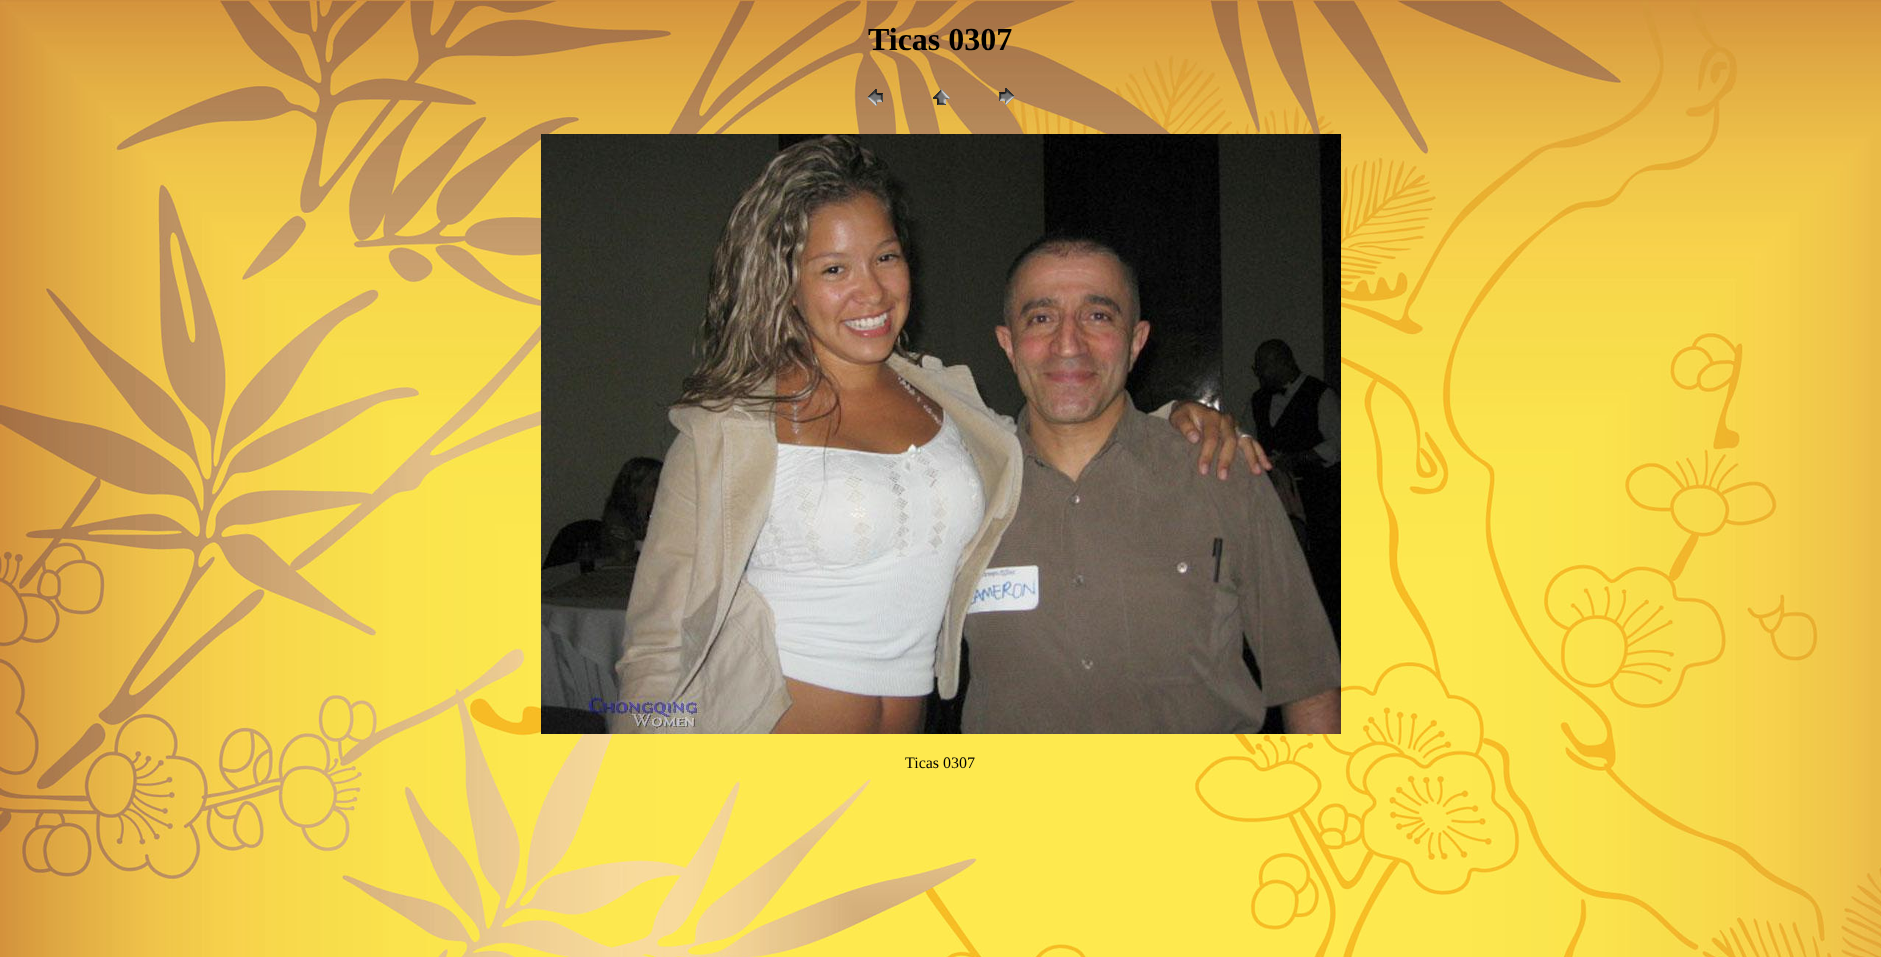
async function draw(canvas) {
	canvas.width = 1881;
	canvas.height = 957;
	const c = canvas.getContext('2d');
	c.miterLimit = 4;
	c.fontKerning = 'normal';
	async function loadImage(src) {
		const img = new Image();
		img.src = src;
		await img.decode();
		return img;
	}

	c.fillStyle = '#fff';
	c.fillRect(0, 0, 1881, 957);
	c.drawImage(await loadImage('img1.png'), 0, 0, 1881, 957);
	c.font = 'bold 32px Liberation Serif';
	c.fillStyle = '#000';
	c.fillText('Ticas 0307', 868, 50);
	c.drawImage(await loadImage('img2.png'), 867, 89, 16, 17);
	c.drawImage(await loadImage('img3.png'), 933, 89, 17, 16);
	c.drawImage(await loadImage('img4.png'), 999, 88, 16, 17);
	c.drawImage(await loadImage('img5.png'), 541, 134, 800, 600);
	c.font = '16px Liberation Serif';
	c.fillText('Ticas 0307', 905, 768);
}

draw(document.querySelector('canvas'));
